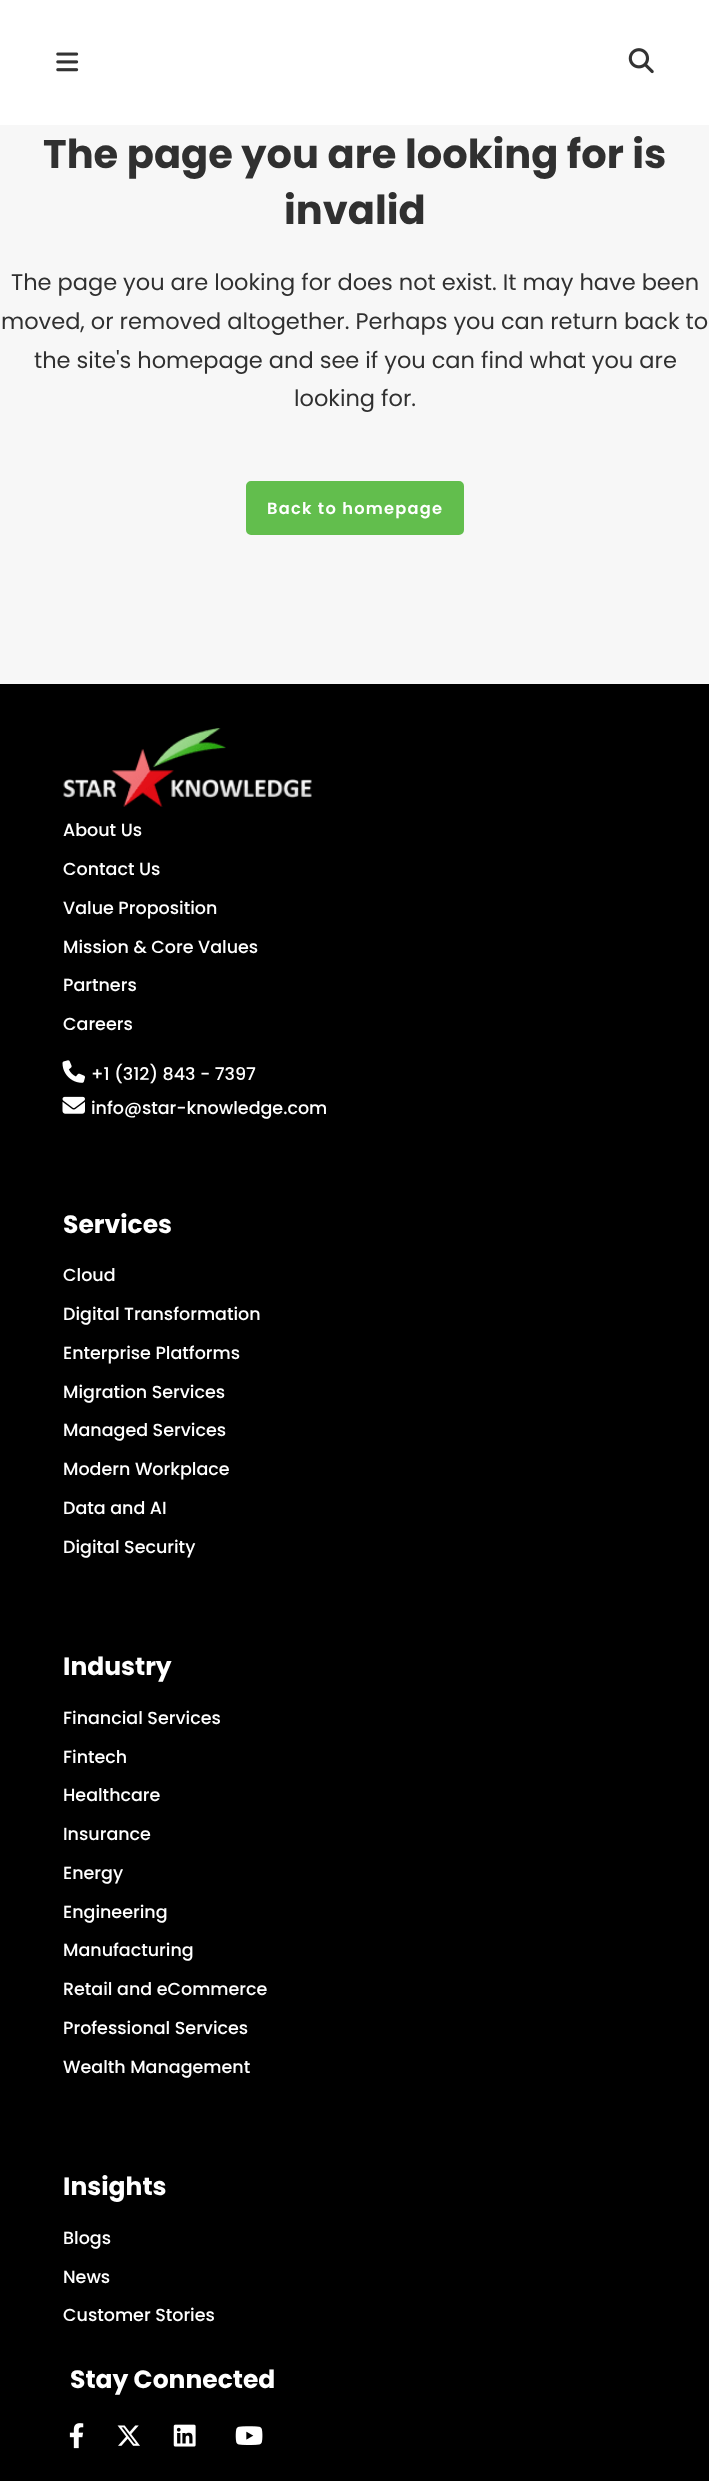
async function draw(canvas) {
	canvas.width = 709;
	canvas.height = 2481;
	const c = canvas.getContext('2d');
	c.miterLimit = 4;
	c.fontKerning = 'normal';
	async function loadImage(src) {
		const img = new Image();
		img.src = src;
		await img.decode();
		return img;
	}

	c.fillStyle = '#f7f7f7';
	c.fillRect(0, 0, 709, 2481);
	c.fillStyle = '#fff';
	c.fillRect(0, 0, 709, 125);
	c.drawImage(await loadImage('img1.png'), 56, 52, 23, 20);
	c.drawImage(await loadImage('img2.png'), 628, 48, 26, 26);
	c.font = 'bold 40px Poppins';
	c.fillStyle = '#303030';
	c.fillText('The page you are looking for is', 43, 168);
	c.fillText('invalid', 284, 224);
	c.font = '22.5px Poppins';
	for (const [text, x, y] of [
		['The page you are looking for does not exist. It may have been', 11, 290],
		['moved, or removed altogether. Perhaps you can return back to', 1, 329],
		['the site\'s homepage and see if you can find what you are', 34, 368],
		['looking for.', 294, 406],
	]) {
		c.fillText(text, x, y);
	}
	c.fillStyle = '#62be4d';
	c.beginPath();
	c.roundRect(247.5, 482.5, 215, 51, 3.5);
	c.fill();
	c.strokeStyle = '#62be4d';
	c.lineWidth = 3;
	c.stroke();
	c.letterSpacing = '1.25px';
	c.font = '600 16.25px Poppins';
	c.fillStyle = '#fff';
	c.fillText('Back to homepage', 267, 514);
	c.fillStyle = '#000';
	c.fillRect(0, 684, 709, 1797);
	c.drawImage(await loadImage('img3.png'), 63, 728, 249, 79);
	c.letterSpacing = '0px';
	c.font = '500 17.5px Poppins';
	c.fillStyle = '#fff';
	for (const [text, x, y] of [
		['About Us', 63, 836],
		['Contact Us', 63, 875],
		['Value Proposition', 63, 914],
		['Mission & Core Values', 63, 953],
		['Partners', 63, 991],
		['Careers', 63, 1030],
	]) {
		c.fillText(text, x, y);
	}
	c.drawImage(await loadImage('img4.png'), 62, 1060, 23, 23);
	c.fillText('+1 (312) 843 - 7397', 91, 1080);
	c.drawImage(await loadImage('img5.png'), 62, 1096, 23, 18);
	c.fillText('info@star-knowledge.com', 91, 1114);
	c.font = 'bold 25px Poppins';
	c.fillText('Services', 63, 1233);
	c.font = '500 17.5px Poppins';
	for (const [text, x, y] of [
		['Cloud', 63, 1281],
		['Digital Transformation', 63, 1320],
		['Enterprise Platforms', 63, 1359],
		['Migration Services', 63, 1398],
		['Managed Services', 63, 1436],
		['Modern Workplace', 63, 1475],
		['Data and AI', 63, 1514],
		['Digital Security', 63, 1553],
	]) {
		c.fillText(text, x, y);
	}
	c.font = 'bold 25px Poppins';
	c.fillText('Industry', 63, 1675);
	c.font = '500 17.5px Poppins';
	for (const [text, x, y] of [
		['Financial Services', 63, 1724],
		['Fintech', 63, 1763],
		['Healthcare', 63, 1801],
		['Insurance', 63, 1840],
		['Energy', 63, 1879],
		['Engineering', 63, 1918],
		['Manufacturing', 63, 1956],
		['Retail and eCommerce', 63, 1995],
		['Professional Services', 63, 2034],
		['Wealth Management', 63, 2073],
	]) {
		c.fillText(text, x, y);
	}
	c.font = 'bold 25px Poppins';
	c.fillText('Insights', 63, 2195);
	c.font = '500 17.5px Poppins';
	for (const [text, x, y] of [
		['Blogs', 63, 2244],
		['News', 63, 2283],
		['Customer Stories', 63, 2321],
	]) {
		c.fillText(text, x, y);
	}
	c.font = 'bold 25px Poppins';
	c.fillText('Stay Connected', 70, 2388);
	c.drawImage(await loadImage('img6.png'), 69, 2423, 15, 26);
	c.drawImage(await loadImage('img7.png'), 117, 2425, 23, 21);
	c.drawImage(await loadImage('img8.png'), 173, 2424, 23, 23);
	c.drawImage(await loadImage('img9.png'), 235, 2426, 28, 19);
}

draw(document.querySelector('canvas'));
